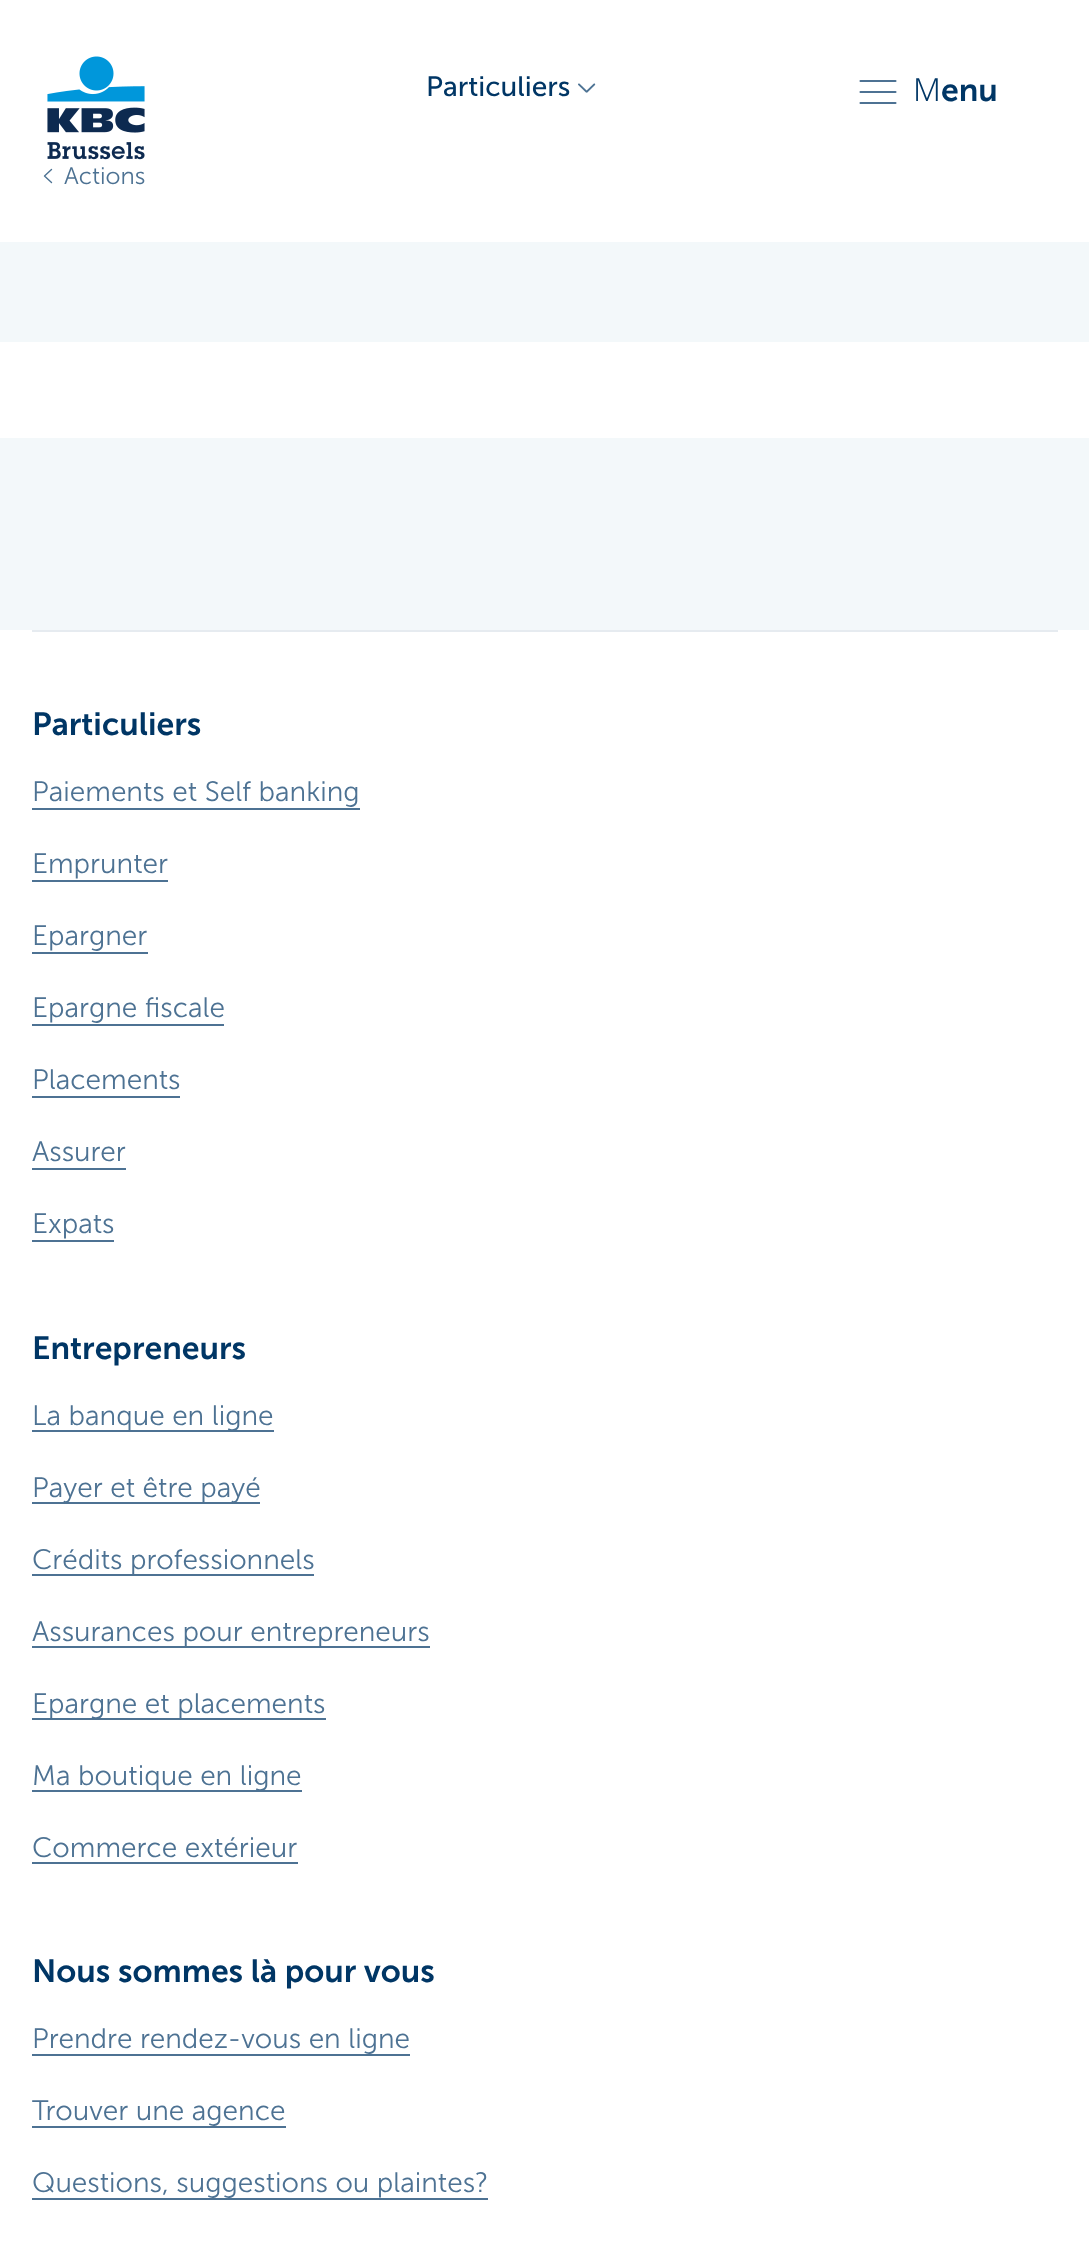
async function draw(canvas) {
	canvas.width = 1089;
	canvas.height = 2241;
	const c = canvas.getContext('2d');
	c.miterLimit = 4;
	c.fontKerning = 'normal';
	async function loadImage(src) {
		const img = new Image();
		img.src = src;
		await img.decode();
		return img;
	}

	c.fillStyle = '#fff';
	c.fillRect(0, 0, 1089, 2241);
	c.drawImage(await loadImage('img1.png'), 47, 56, 98, 104);
	c.font = '28px Museo Sans';
	c.fillStyle = '#003665';
	c.fillText('Particuliers', 426, 96);
	c.drawImage(await loadImage('img2.png'), 578, 83, 18, 10);
	c.beginPath();
	c.moveTo(860.5, 92);
	c.lineTo(895.5, 92);
	c.moveTo(860.5, 81);
	c.lineTo(895.5, 81);
	c.moveTo(860.5, 103);
	c.lineTo(895.5, 103);
	c.strokeStyle = '#4d7293';
	c.lineWidth = 2.1;
	c.lineCap = 'round';
	c.lineJoin = 'round';
	c.stroke();
	c.font = '300 32px Noto Sans';
	c.fillText('M', 913, 101);
	c.font = '600 32px Museo Sans';
	c.fillText('enu', 941, 101);
	c.beginPath();
	c.moveTo(51.5, 169.5);
	c.lineTo(44.5, 176);
	c.lineTo(51.5, 182.5);
	c.lineWidth = 1.4;
	c.stroke();
	c.font = '300 24px Museo Sans';
	c.fillStyle = '#4d7293';
	c.fillText('Actions', 64, 184);
	for (const [x, y, w, h, color] of [
		[0, 242, 1089, 100, '#f3f8fa'],
		[0, 438, 1089, 192, '#f3f8fa'],
		[32, 630, 1026, 2, '#e6ebf0'],
	]) {
		c.fillStyle = color;
		c.fillRect(x, y, w, h);
	}
	c.font = '600 32px Museo Sans';
	c.fillStyle = '#003665';
	c.fillText('Particuliers', 32, 735);
	c.font = '300 28px Museo Sans';
	c.fillStyle = '#4d7293';
	c.fillText('Paiements et Self banking', 32, 801);
	c.fillRect(32, 808, 328, 2);
	c.fillText('Emprunter', 32, 873);
	c.fillRect(32, 880, 136, 2);
	c.fillText('Epargner', 32, 945);
	c.fillRect(32, 952, 116, 2);
	c.fillText('Epargne fiscale', 32, 1017);
	c.fillRect(32, 1024, 192, 2);
	c.fillText('Placements', 32, 1089);
	c.fillRect(32, 1096, 148, 2);
	c.fillText('Assurer', 32, 1161);
	c.fillRect(32, 1168, 94, 2);
	c.fillText('Expats', 32, 1233);
	c.fillRect(32, 1240, 82, 2);
	c.font = '600 32px Museo Sans';
	c.fillStyle = '#003665';
	c.fillText('Entrepreneurs', 32, 1359);
	c.fillStyle = '#4d7293';
	c.fillRect(32, 1430, 242, 2);
	c.font = '300 28px Museo Sans';
	c.fillText('La banque en ligne', 32, 1425);
	c.fillRect(32, 1502, 228, 2);
	c.fillText('Payer et être payé', 32, 1497);
	c.fillRect(32, 1574, 282, 2);
	c.fillText('Crédits professionnels', 32, 1569);
	c.fillRect(32, 1646, 398, 2);
	c.fillText('Assurances pour entrepreneurs', 32, 1641);
	c.fillRect(32, 1718, 294, 2);
	c.fillText('Epargne et placements', 32, 1713);
	c.fillRect(32, 1790, 270, 2);
	c.fillText('Ma boutique en ligne', 32, 1785);
	c.fillText('Commerce extérieur', 32, 1857);
	c.fillRect(32, 1862, 266, 2);
	c.font = '600 32px Museo Sans';
	c.fillStyle = '#003665';
	c.fillText('Nous sommes là pour vous', 32, 1982);
	c.font = '300 28px Museo Sans';
	c.fillStyle = '#4d7293';
	c.fillText('Prendre rendez-vous en ligne', 32, 2048);
	c.fillRect(32, 2054, 378, 2);
	c.fillText('Trouver une agence', 32, 2120);
	c.fillRect(32, 2126, 254, 2);
	c.fillText('Questions, suggestions ou plaintes?', 32, 2192);
	c.fillRect(32, 2198, 456, 2);
}

draw(document.querySelector('canvas'));
